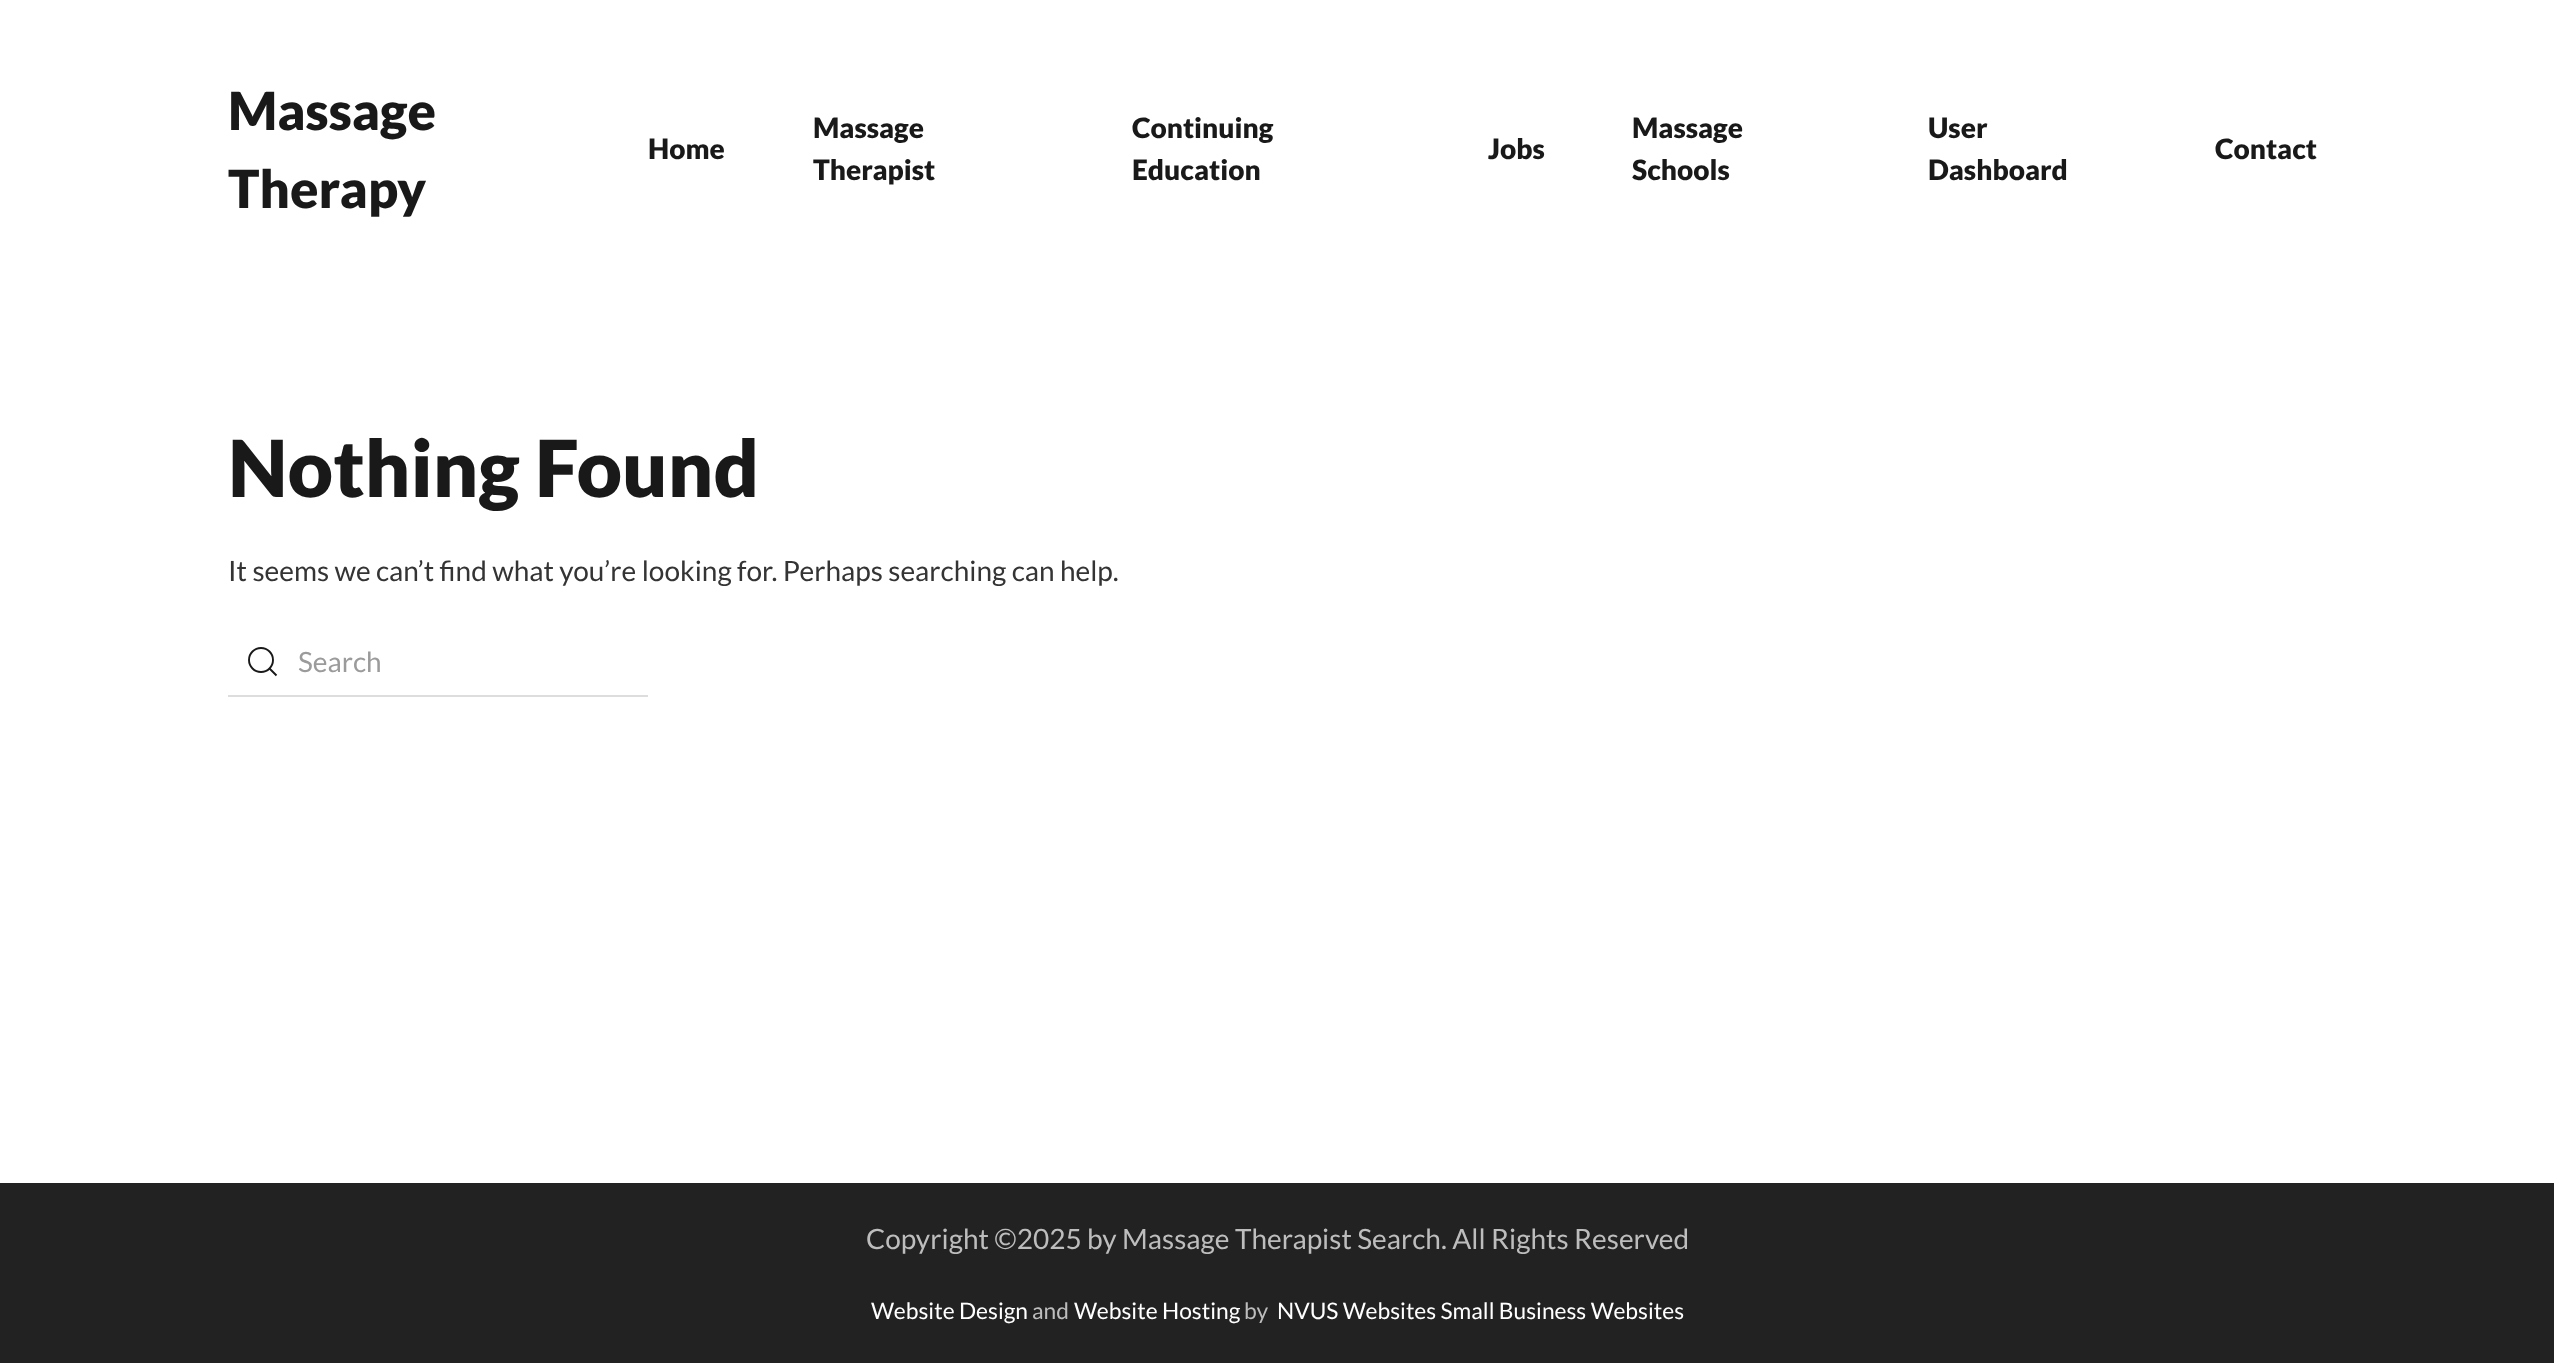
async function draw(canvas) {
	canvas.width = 2554;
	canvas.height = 1363;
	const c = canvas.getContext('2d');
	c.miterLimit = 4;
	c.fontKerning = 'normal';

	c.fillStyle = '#fff';
	c.fillRect(0, 0, 2554, 1363);
	c.font = '900 52.5px Lato';
	c.fillStyle = '#191919';
	c.fillText('Massage', 228, 130);
	c.fillText('Therapy', 228, 208);
	c.font = '900 28px Lato';
	for (const [text, x, y] of [
		['Home', 648, 159],
		['Massage', 813, 138],
		['Therapist', 813, 180],
		['Continuing', 1132, 138],
		['Education', 1132, 180],
		['Jobs', 1488, 159],
		['Massage', 1632, 138],
		['Schools', 1632, 180],
		['User', 1928, 138],
		['Dashboard', 1928, 180],
		['Contact', 2215, 159],
	]) {
		c.fillText(text, x, y);
	}
	c.font = '900 78.75px Lato';
	c.fillText('Nothing Found', 228, 497);
	c.font = '28px Lato';
	c.fillStyle = '#343434';
	c.fillText('It seems we can’t find what you’re looking for. Perhaps searching can help.', 228, 581);
	c.beginPath();
	c.arc(261, 660, 12, 0, 2 * Math.PI);
	c.strokeStyle = '#191919';
	c.lineWidth = 1.9;
	c.stroke();
	c.beginPath();
	c.moveTo(269.5, 668.5);
	c.lineTo(276.5, 675.5);
	c.closePath();
	c.stroke();
	c.fillStyle = '#ddd';
	c.fillRect(228, 695, 420, 2);
	c.fillStyle = '#9b9b9b';
	c.fillText('Search', 298, 672);
	c.fillStyle = '#222';
	c.fillRect(0, 1183, 2554, 180);
	c.fillStyle = '#bdbdbd';
	c.fillText('Copyright ©2025 by Massage Therapist Search. All Rights Reserved', 866, 1249);
	c.font = '22.75px Lato';
	c.fillStyle = '#fff';
	c.fillText('Website Design', 871, 1319);
	c.fillStyle = '#bdbdbd';
	c.fillText('and', 1032, 1319);
	c.fillStyle = '#fff';
	c.fillText('Website Hosting', 1074, 1319);
	c.fillStyle = '#bdbdbd';
	c.fillText('by', 1244, 1319);
	c.fillStyle = '#fff';
	c.fillText('NVUS Websites Small Business Websites', 1277, 1319);
}

draw(document.querySelector('canvas'));
